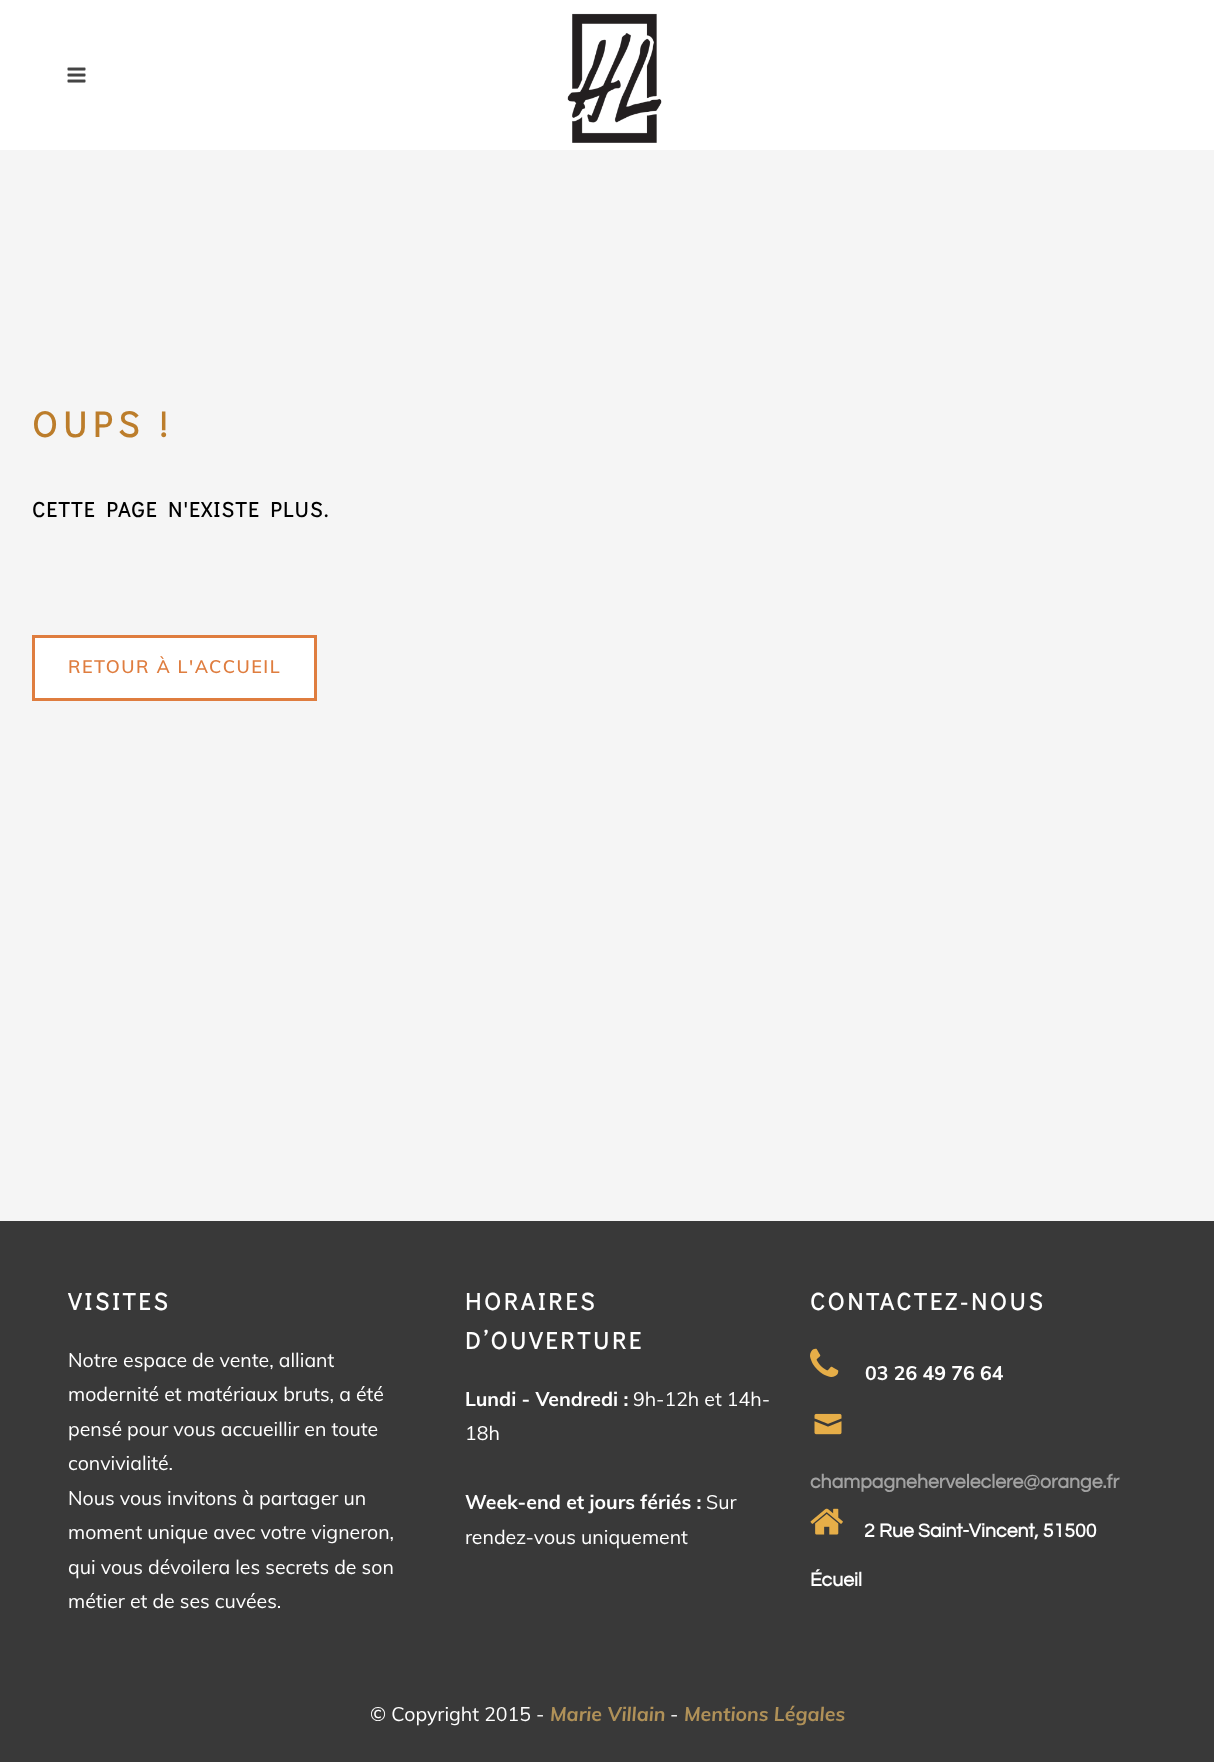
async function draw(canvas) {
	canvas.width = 1214;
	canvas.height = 1762;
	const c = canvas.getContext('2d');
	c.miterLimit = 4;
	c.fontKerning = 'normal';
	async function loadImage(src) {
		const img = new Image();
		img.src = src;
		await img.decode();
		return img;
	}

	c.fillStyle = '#f5f5f5';
	c.fillRect(0, 0, 1214, 1762);
	c.fillStyle = '#fff';
	c.fillRect(0, 0, 1214, 150);
	c.drawImage(await loadImage('img1.png'), 67, 67, 19, 16);
	c.drawImage(await loadImage('img2.png'), 567, 13, 95, 130);
	c.letterSpacing = '6px';
	c.font = 'bold 36px Didact Gothic';
	c.fillStyle = '#bc7d2b';
	c.fillText('OUPS !', 32, 437);
	c.letterSpacing = '1.5px';
	c.font = 'bold 21px Didact Gothic';
	c.fillStyle = '#000';
	c.fillText('CETTE PAGE N\'EXISTE PLUS.', 32, 517);
	c.fillStyle = '#fff';
	c.beginPath();
	c.rect(33.5, 636.5, 282, 63);
	c.fill();
	c.strokeStyle = '#df7d3f';
	c.lineWidth = 3;
	c.stroke();
	c.font = '600 18px Muli';
	c.fillStyle = '#df7d3f';
	c.fillText('RETOUR À L\'ACCUEIL', 68, 673);
	c.fillStyle = '#393939';
	c.fillRect(0, 1221, 1214, 541);
	c.letterSpacing = '3px';
	c.font = 'bold 24px Didact Gothic';
	c.fillStyle = '#fff';
	c.fillText('VISITES', 68, 1310);
	c.letterSpacing = '0px';
	c.font = '19.5px Muli';
	for (const [text, x, y] of [
		['Notre espace de vente, alliant', 68, 1367],
		['modernité et matériaux bruts, a été', 68, 1401],
		['pensé pour vous accueillir en toute', 68, 1436],
		['convivialité.', 68, 1470],
		['Nous vous invitons à partager un', 68, 1505],
		['moment unique avec votre vigneron,', 68, 1539],
		['qui vous dévoilera les secrets de son', 68, 1574],
		['métier et de ses cuvées.', 68, 1608],
	]) {
		c.fillText(text, x, y);
	}
	c.letterSpacing = '3px';
	c.font = 'bold 24px Didact Gothic';
	c.fillText('HORAIRES', 465, 1310);
	c.fillText('D’OUVERTURE', 465, 1349);
	c.letterSpacing = '0px';
	c.font = 'bold 19.5px Muli';
	c.fillText('Lundi - Vendredi :', 465, 1406);
	c.font = '19.5px Muli';
	c.fillText('9h-12h et 14h-', 633, 1406);
	c.fillText('18h', 465, 1440);
	c.font = 'bold 19.5px Muli';
	c.fillText('Week-end et jours fériés :', 465, 1509);
	c.font = '19.5px Muli';
	c.fillText('Sur', 706, 1509);
	c.fillText('rendez-vous uniquement', 465, 1544);
	c.letterSpacing = '3px';
	c.font = 'bold 24px Didact Gothic';
	c.fillText('CONTACTEZ-NOUS', 810, 1310);
	c.drawImage(await loadImage('img3.png'), 810, 1348, 29, 29);
	c.letterSpacing = '0px';
	c.font = 'bold 19.5px Muli';
	c.fillText('03 26 49 76 64', 865, 1380);
	c.drawImage(await loadImage('img4.png'), 814, 1413, 28, 22);
	c.font = 'bold 19.5px Questrial';
	c.fillStyle = '#a2a2a2';
	c.fillText('champagneherveleclere@orange.fr', 810, 1488);
	c.drawImage(await loadImage('img5.png'), 810, 1508, 33, 27);
	c.fillStyle = '#fff';
	c.fillText('2 Rue Saint-Vincent, 51500', 864, 1537);
	c.fillText('Écueil', 810, 1586);
	c.font = '19.5px Muli';
	c.fillText('© Copyright 2015 -', 370, 1721);
	c.font = 'italic bold 19.5px Muli';
	c.fillStyle = '#b09158';
	c.fillText('Marie Villain', 550, 1721);
	c.font = '19.5px Muli';
	c.fillStyle = '#fff';
	c.fillText('-', 670, 1721);
	c.font = 'italic bold 19.5px Muli';
	c.fillStyle = '#b09158';
	c.fillText('Mentions Légales', 684, 1721);
}

draw(document.querySelector('canvas'));
